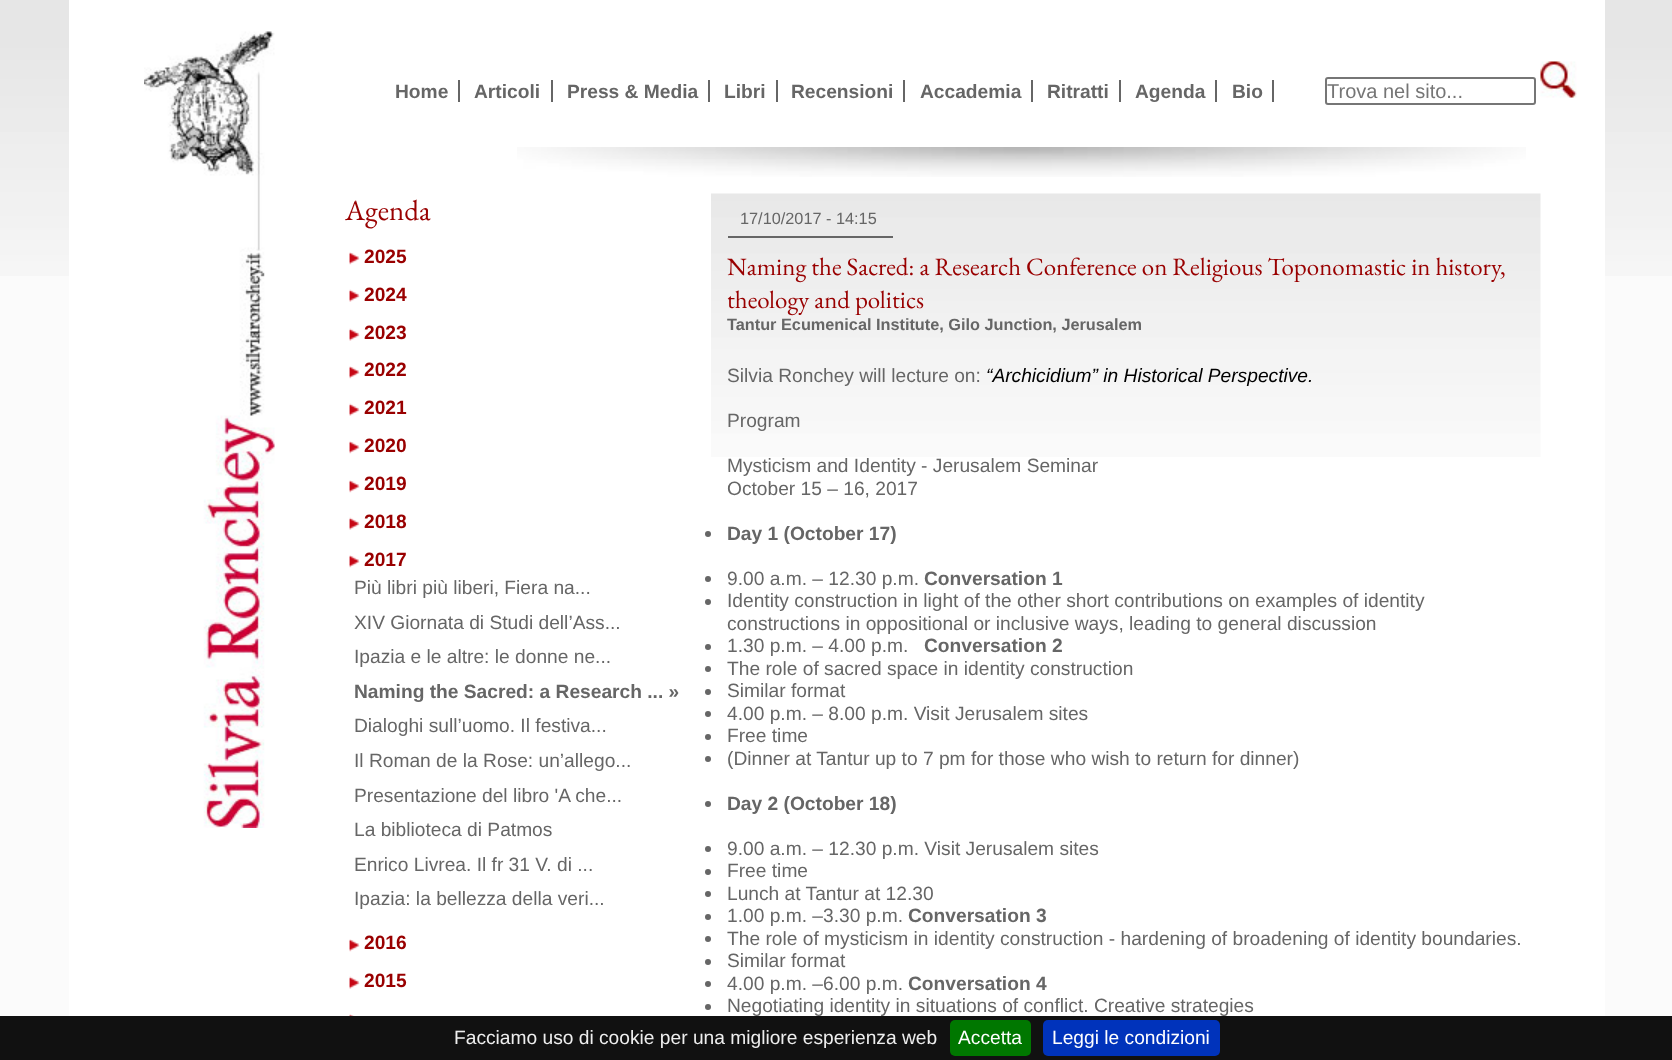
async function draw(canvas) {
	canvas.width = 1672;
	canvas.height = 1060;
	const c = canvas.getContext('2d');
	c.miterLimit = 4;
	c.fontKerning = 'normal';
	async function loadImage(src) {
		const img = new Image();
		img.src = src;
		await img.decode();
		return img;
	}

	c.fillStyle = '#fbfbfb';
	c.fillRect(0, 0, 1672, 1060);
	c.drawImage(await loadImage('img1.png'), 0, 0, 1672, 276);
	c.fillStyle = '#fff';
	c.fillRect(69, 0, 1536, 1016);
	c.drawImage(await loadImage('img2.png'), 144, 31, 131, 797);
	c.font = 'bold 19.2px Liberation Sans';
	c.fillStyle = '#666';
	c.fillText('Home', 395, 98);
	c.fillRect(458, 80, 2, 22);
	c.fillText('Articoli', 474, 98);
	c.fillRect(551, 80, 2, 22);
	c.fillText('Press & Media', 567, 98);
	c.fillRect(708, 80, 2, 22);
	c.fillText('Libri', 724, 98);
	c.fillRect(776, 80, 2, 22);
	c.fillText('Recensioni', 791, 98);
	c.fillRect(903, 80, 2, 22);
	c.fillText('Accademia', 920, 98);
	c.fillRect(1031, 80, 2, 22);
	c.fillText('Ritratti', 1047, 98);
	c.fillRect(1119, 80, 2, 22);
	c.fillText('Agenda', 1135, 98);
	c.fillRect(1215, 80, 2, 22);
	c.fillText('Bio', 1232, 98);
	c.fillRect(1272, 80, 2, 22);
	c.beginPath();
	c.roundRect(1326, 78, 209, 26, 2);
	c.strokeStyle = '#767676';
	c.lineWidth = 2;
	c.stroke();
	c.font = '20px Liberation Sans';
	c.fillStyle = '#757575';
	c.fillText('Trova nel sito...', 1327, 98);
	c.drawImage(await loadImage('img3.png'), 1540, 61, 37, 37);
	c.drawImage(await loadImage('img4.png'), 517, 147, 1009, 30);
	c.font = '29px EB Garamond';
	c.fillStyle = '#900';
	c.fillText('Agenda', 345, 220);
	c.drawImage(await loadImage('img5.png'), 349, 252, 11, 13);
	c.font = 'bold 19.2px Liberation Sans';
	c.fillText('2025', 364, 263);
	c.drawImage(await loadImage('img6.png'), 349, 289, 11, 13);
	c.fillText('2024', 364, 301);
	c.drawImage(await loadImage('img6.png'), 349, 328, 11, 13);
	c.fillText('2023', 364, 339);
	c.drawImage(await loadImage('img5.png'), 349, 366, 11, 13);
	c.fillText('2022', 364, 376);
	c.drawImage(await loadImage('img6.png'), 349, 403, 11, 13);
	c.fillText('2021', 364, 414);
	c.drawImage(await loadImage('img5.png'), 349, 441, 11, 13);
	c.fillText('2020', 364, 452);
	c.drawImage(await loadImage('img5.png'), 349, 480, 11, 13);
	c.fillText('2019', 364, 490);
	c.drawImage(await loadImage('img6.png'), 349, 517, 11, 13);
	c.fillText('2018', 364, 528);
	c.drawImage(await loadImage('img5.png'), 349, 555, 11, 13);
	c.fillText('2017', 364, 566);
	c.font = '19.2px Liberation Sans';
	c.fillStyle = '#666';
	for (const [text, x, y] of [
		['Più libri più liberi, Fiera na...', 354, 594],
		['XIV Giornata di Studi dell’Ass...', 354, 629],
		['Ipazia e le altre: le donne ne...', 354, 663],
	]) {
		c.fillText(text, x, y);
	}
	c.font = 'bold 19.2px Liberation Sans';
	c.fillText('Naming the Sacred: a Research ... »', 354, 698);
	c.font = '19.2px Liberation Sans';
	for (const [text, x, y] of [
		['Dialoghi sull’uomo. Il festiva...', 354, 732],
		['Il Roman de la Rose: un’allego...', 354, 767],
		['Presentazione del libro \'A che...', 354, 802],
		['La biblioteca di Patmos', 354, 836],
		['Enrico Livrea. Il fr 31 V. di ...', 354, 871],
		['Ipazia: la bellezza della veri...', 354, 905],
	]) {
		c.fillText(text, x, y);
	}
	c.drawImage(await loadImage('img5.png'), 349, 939, 11, 13);
	c.font = 'bold 19.2px Liberation Sans';
	c.fillStyle = '#900';
	c.fillText('2016', 364, 949);
	c.drawImage(await loadImage('img6.png'), 349, 976, 11, 13);
	c.fillText('2015', 364, 987);
	c.drawImage(await loadImage('img7.png'), 349, 1014, 6, 2);
	c.drawImage(await loadImage('img8.png'), 711, 193, 830, 264);
	c.font = '16.3px Liberation Sans';
	c.fillStyle = '#666';
	c.fillText('17/10/2017 - 14:15', 740, 224);
	c.fillRect(728, 236, 165, 2);
	c.font = '24.95px EB Garamond';
	c.fillStyle = '#900';
	c.fillText('Naming the Sacred: a Research Conference on Religious Toponomastic in history,', 727, 275);
	c.fillText('theology and politics', 727, 308);
	c.font = 'bold 16.3px Liberation Sans';
	c.fillStyle = '#666';
	c.fillText('Tantur Ecumenical Institute, Gilo Junction, Jerusalem', 727, 330);
	c.font = '19.2px Liberation Sans';
	c.fillText('Silvia Ronchey will lecture on:', 727, 382);
	c.font = 'italic 19.2px Liberation Sans';
	c.fillStyle = '#000';
	c.fillText('“Archicidium” in Historical Perspective.', 986, 382);
	c.font = '19.2px Liberation Sans';
	c.fillStyle = '#666';
	for (const [text, x, y] of [
		['Program', 727, 427],
		['Mysticism and Identity - Jerusalem Seminar', 727, 472],
		['October 15 – 16, 2017', 727, 495],
	]) {
		c.fillText(text, x, y);
	}
	c.beginPath();
	c.arc(708, 534, 3, 0, 2 * Math.PI);
	c.fill();
	c.font = 'bold 19.2px Liberation Sans';
	c.fillText('Day 1 (October 17)', 727, 540);
	c.beginPath();
	c.arc(708, 579, 3, 0, 2 * Math.PI);
	c.fill();
	c.font = '19.2px Liberation Sans';
	c.fillText('9.00 a.m. – 12.30 p.m.', 727, 585);
	c.font = 'bold 19.2px Liberation Sans';
	c.fillText('Conversation 1', 924, 585);
	c.beginPath();
	c.arc(708, 602, 3, 0, 2 * Math.PI);
	c.fill();
	c.font = '19.2px Liberation Sans';
	c.fillText('Identity construction in light of the other short contributions on examples of identity', 727, 607);
	c.fillText('constructions in oppositional or inclusive ways, leading to general discussion', 727, 630);
	c.beginPath();
	c.arc(708, 647, 3, 0, 2 * Math.PI);
	c.fill();
	c.fillText('1.30 p.m. – 4.00 p.m.', 727, 652);
	c.font = 'bold 19.2px Liberation Sans';
	c.fillText('Conversation 2', 924, 652);
	c.beginPath();
	c.arc(708, 669, 3, 0, 2 * Math.PI);
	c.fill();
	c.font = '19.2px Liberation Sans';
	c.fillText('The role of sacred space in identity construction', 727, 675);
	c.beginPath();
	c.arc(708, 692, 3, 0, 2 * Math.PI);
	c.fill();
	c.fillText('Similar format', 727, 697);
	c.beginPath();
	c.arc(708, 714, 3, 0, 2 * Math.PI);
	c.fill();
	c.fillText('4.00 p.m. – 8.00 p.m. Visit Jerusalem sites', 727, 720);
	c.beginPath();
	c.arc(708, 737, 3, 0, 2 * Math.PI);
	c.fill();
	c.fillText('Free time', 727, 742);
	c.beginPath();
	c.arc(708, 759, 3, 0, 2 * Math.PI);
	c.fill();
	c.fillText('(Dinner at Tantur up to 7 pm for those who wish to return for dinner)', 727, 765);
	c.beginPath();
	c.arc(708, 804, 3, 0, 2 * Math.PI);
	c.fill();
	c.font = 'bold 19.2px Liberation Sans';
	c.fillText('Day 2 (October 18)', 727, 810);
	c.beginPath();
	c.arc(708, 849, 3, 0, 2 * Math.PI);
	c.fill();
	c.font = '19.2px Liberation Sans';
	c.fillText('9.00 a.m. – 12.30 p.m. Visit Jerusalem sites', 727, 855);
	c.beginPath();
	c.arc(708, 872, 3, 0, 2 * Math.PI);
	c.fill();
	c.fillText('Free time', 727, 877);
	c.beginPath();
	c.arc(708, 894, 3, 0, 2 * Math.PI);
	c.fill();
	c.fillText('Lunch at Tantur at 12.30', 727, 900);
	c.beginPath();
	c.arc(708, 917, 3, 0, 2 * Math.PI);
	c.fill();
	c.fillText('1.00 p.m. –3.30 p.m.', 727, 922);
	c.font = 'bold 19.2px Liberation Sans';
	c.fillText('Conversation 3', 908, 922);
	c.beginPath();
	c.arc(708, 939, 3, 0, 2 * Math.PI);
	c.fill();
	c.font = '19.2px Liberation Sans';
	c.fillText('The role of mysticism in identity construction - hardening of broadening of identity boundaries.', 727, 945);
	c.beginPath();
	c.arc(708, 962, 3, 0, 2 * Math.PI);
	c.fill();
	c.fillText('Similar format', 727, 967);
	c.beginPath();
	c.arc(708, 984, 3, 0, 2 * Math.PI);
	c.fill();
	c.fillText('4.00 p.m. –6.00 p.m.', 727, 990);
	c.font = 'bold 19.2px Liberation Sans';
	c.fillText('Conversation 4', 908, 990);
	c.beginPath();
	c.arc(708, 1007, 3, 0, 2 * Math.PI);
	c.fill();
	c.font = '19.2px Liberation Sans';
	c.fillText('Negotiating identity in situations of conflict. Creative strategies', 727, 1012);
	c.fillStyle = '#111';
	c.fillRect(0, 1016, 1672, 44);
	c.fillStyle = '#eee';
	c.fillText('Facciamo uso di cookie per una migliore esperienza web', 454, 1044);
	c.fillStyle = '#070';
	c.beginPath();
	c.roundRect(950, 1020, 81, 36, 5);
	c.fill();
	c.fillStyle = '#fff';
	c.fillText('Accetta', 958, 1044);
	c.fillStyle = '#03b';
	c.beginPath();
	c.roundRect(1043, 1020, 177, 36, 5);
	c.fill();
	c.fillStyle = '#fff';
	c.fillText('Leggi le condizioni', 1052, 1044);
}

draw(document.querySelector('canvas'));
